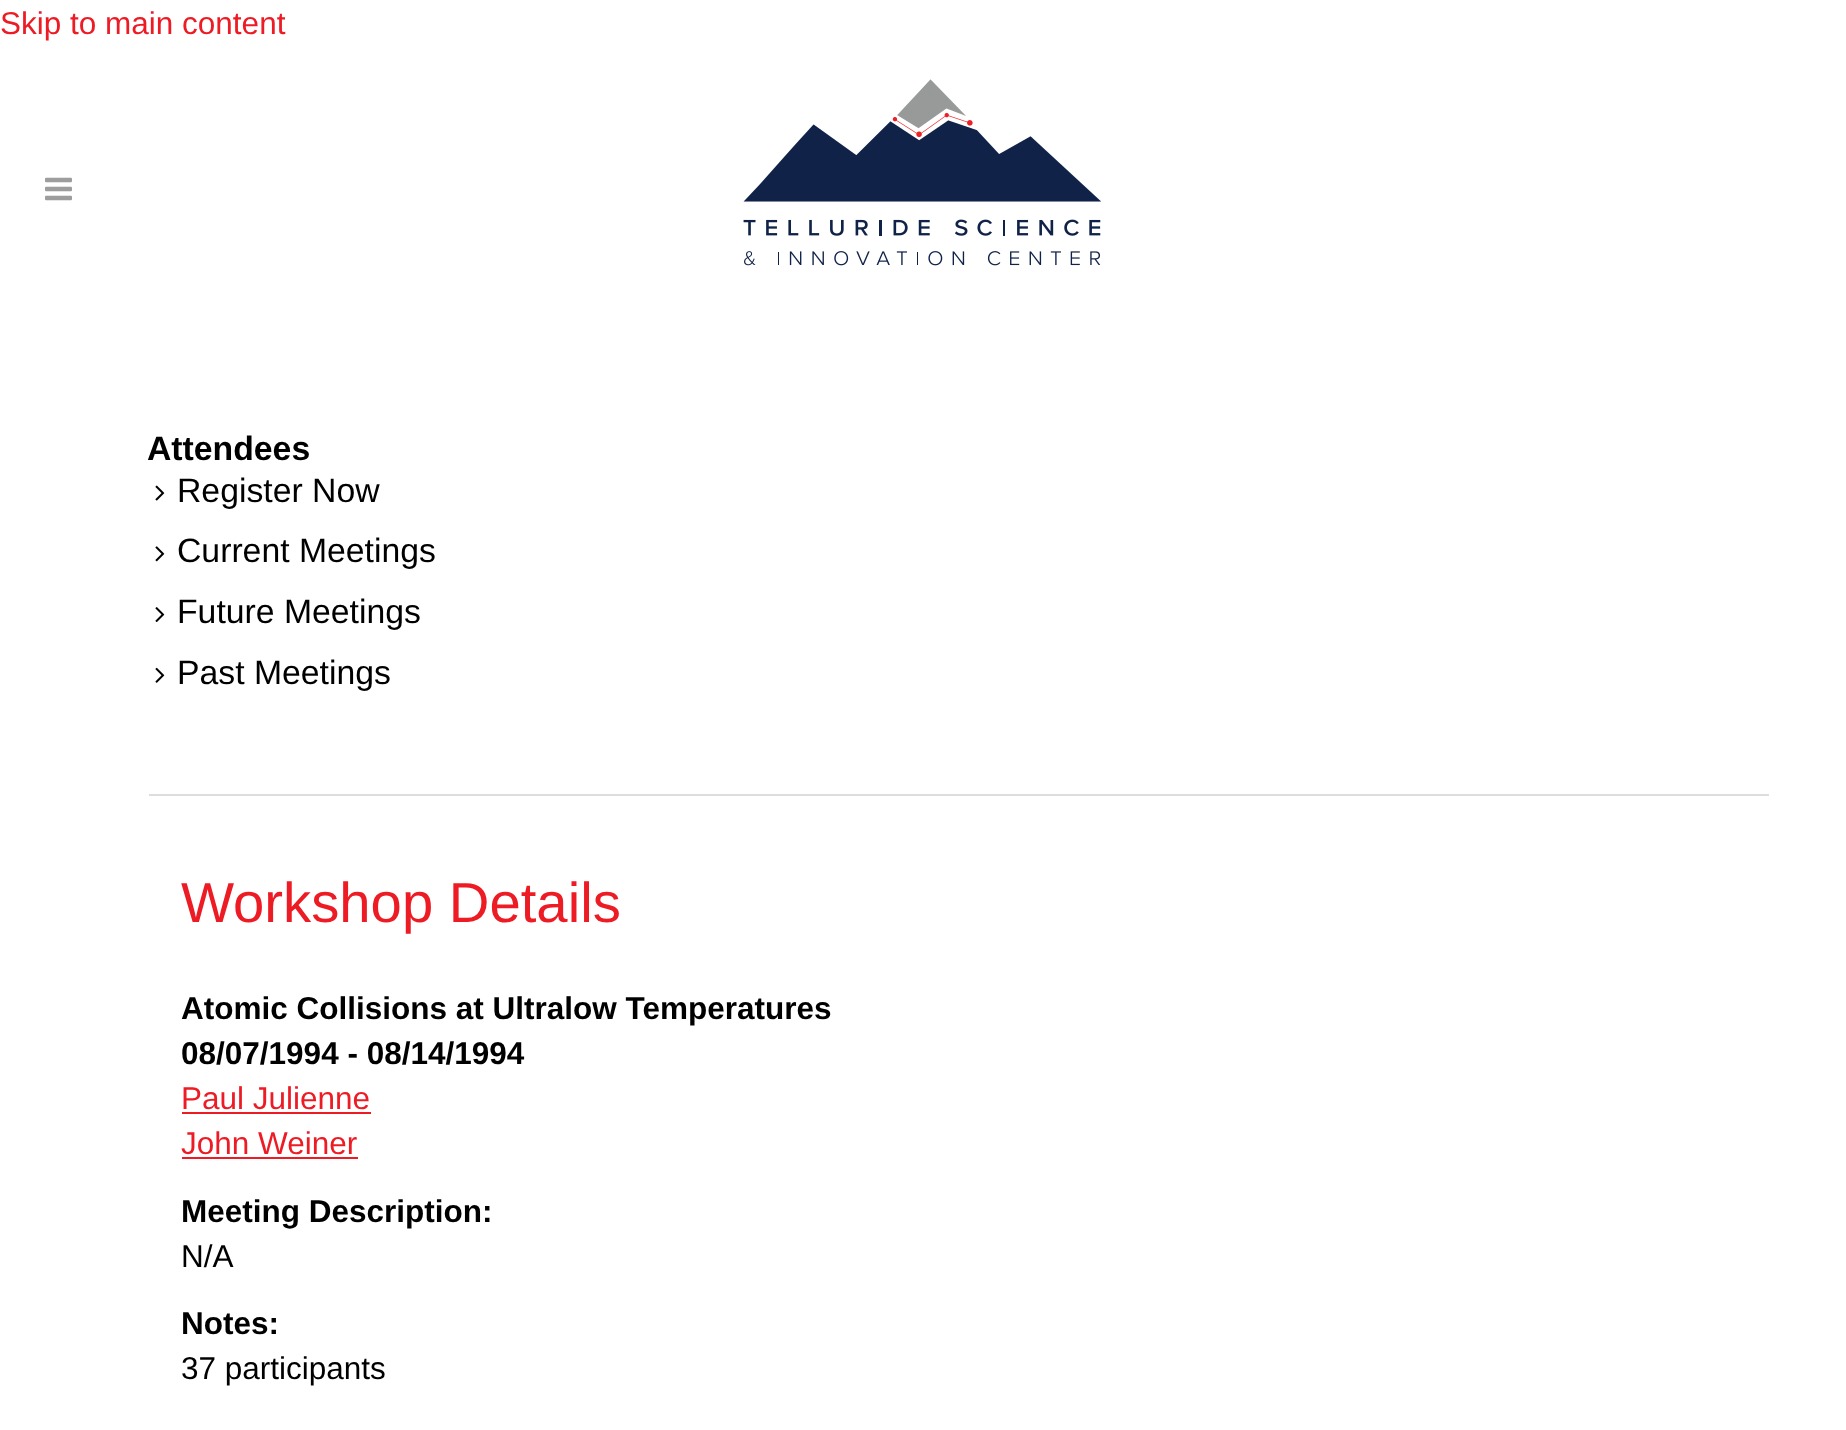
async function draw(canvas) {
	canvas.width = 1846;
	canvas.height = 1430;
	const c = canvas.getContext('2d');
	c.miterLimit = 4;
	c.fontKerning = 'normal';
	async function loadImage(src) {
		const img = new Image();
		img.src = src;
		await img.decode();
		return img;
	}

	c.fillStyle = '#fff';
	c.fillRect(0, 0, 1846, 1430);
	c.font = '31.5px Liberation Sans';
	c.fillStyle = '#ed1b24';
	c.fillText('Skip to main content', 0, 34);
	c.drawImage(await loadImage('img1.png'), 45, 177, 27, 24);
	c.drawImage(await loadImage('img2.png'), 743, 79, 358, 187);
	c.fillStyle = '#ddd';
	c.fillRect(149, 794, 1620, 2);
	c.font = 'bold 33.75px Liberation Sans';
	c.fillStyle = '#000';
	c.fillText('Attendees', 147, 460);
	c.drawImage(await loadImage('img3.png'), 155, 485, 10, 16);
	c.font = '33.75px Liberation Sans';
	c.fillText('Register Now', 177, 502);
	c.drawImage(await loadImage('img4.png'), 155, 546, 10, 16);
	c.fillText('Current Meetings', 177, 562);
	c.drawImage(await loadImage('img5.png'), 155, 607, 10, 15);
	c.fillText('Future Meetings', 177, 623);
	c.drawImage(await loadImage('img6.png'), 155, 667, 10, 16);
	c.fillText('Past Meetings', 177, 684);
	c.font = '56.25px Liberation Sans';
	c.fillStyle = '#ed1b24';
	c.fillText('Workshop Details', 181, 922);
	c.font = 'bold 31.5px Liberation Sans';
	c.fillStyle = '#000';
	c.fillText('Atomic Collisions at Ultralow Temperatures', 181, 1019);
	c.fillText('08/07/1994 - 08/14/1994', 181, 1064);
	c.font = '31.5px Liberation Sans';
	c.fillStyle = '#ed1b24';
	c.fillText('Paul Julienne', 181, 1109);
	c.fillRect(182, 1112, 189, 2);
	c.fillText('John Weiner', 181, 1154);
	c.fillRect(182, 1157, 176, 2);
	c.font = 'bold 31.5px Liberation Sans';
	c.fillStyle = '#000';
	c.fillText('Meeting Description:', 181, 1222);
	c.font = '31.5px Liberation Sans';
	c.fillText('N/A', 181, 1267);
	c.font = 'bold 31.5px Liberation Sans';
	c.fillText('Notes:', 181, 1334);
	c.font = '31.5px Liberation Sans';
	c.fillText('37 participants', 181, 1379);
}

draw(document.querySelector('canvas'));
